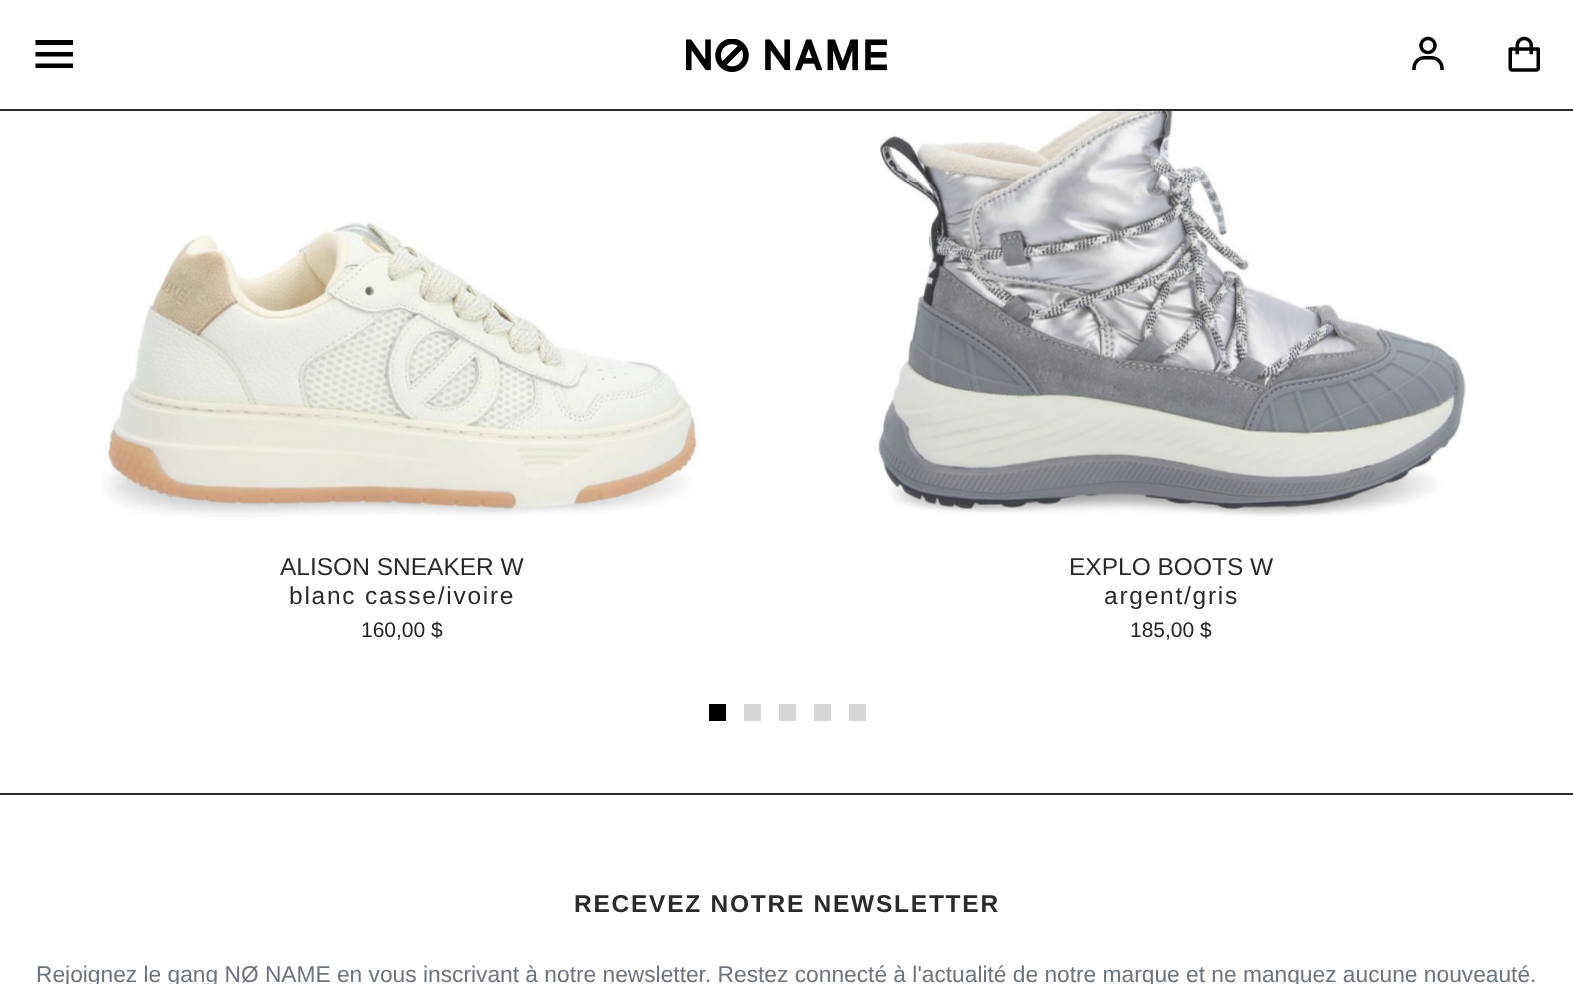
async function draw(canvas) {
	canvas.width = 1573;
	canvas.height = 984;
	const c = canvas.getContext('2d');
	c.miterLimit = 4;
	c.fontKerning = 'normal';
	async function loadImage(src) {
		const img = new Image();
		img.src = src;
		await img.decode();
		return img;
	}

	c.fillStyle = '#fff';
	c.fillRect(0, 0, 1573, 984);
	c.fillStyle = '#2a2a2a';
	c.fillRect(0, 109, 1573, 2);
	c.fillStyle = '#000';
	c.beginPath();
	c.moveTo(35.5, 40);
	c.lineTo(73, 40);
	c.lineTo(73, 45);
	c.lineTo(35.5, 45);
	c.closePath();
	c.moveTo(35.5, 52);
	c.lineTo(73, 52);
	c.lineTo(73, 56.5);
	c.lineTo(35.5, 56.5);
	c.closePath();
	c.moveTo(35.5, 63.5);
	c.lineTo(73, 63.5);
	c.lineTo(73, 68);
	c.lineTo(35.5, 68);
	c.closePath();
	c.fill();
	c.drawImage(await loadImage('img1.png'), 686, 39, 201, 33);
	c.drawImage(await loadImage('img2.png'), 1412, 36, 32, 34);
	c.drawImage(await loadImage('img3.png'), 1508, 36, 32, 36);
	c.drawImage(await loadImage('img4.png'), 101, 215, 599, 303);
	c.font = '24.5px Liberation Sans';
	c.fillStyle = '#2a2a2a';
	c.fillText('ALISON SNEAKER W', 280, 575);
	c.letterSpacing = '1.75px';
	c.fillText('blanc casse/ivoire', 289, 604);
	c.letterSpacing = '0px';
	c.font = '21px Liberation Sans';
	c.fillStyle = '#212529';
	c.fillText('160,00 $', 361, 637);
	c.drawImage(await loadImage('img5.png'), 876, 111, 591, 406);
	c.font = '24.5px Liberation Sans';
	c.fillStyle = '#2a2a2a';
	c.fillText('EXPLO BOOTS W', 1069, 575);
	c.letterSpacing = '1.75px';
	c.fillText('argent/gris', 1104, 604);
	c.letterSpacing = '0px';
	c.font = '21px Liberation Sans';
	c.fillStyle = '#212529';
	c.fillText('185,00 $', 1130, 637);
	for (const [x, y, w, h, color] of [
		[709, 704, 17, 17, '#000'],
		[744, 704, 17, 17, '#d6d6d6'],
		[779, 704, 17, 17, '#d6d6d6'],
		[814, 704, 17, 17, '#d6d6d6'],
		[849, 704, 17, 17, '#d6d6d6'],
		[0, 793, 1573, 2, '#2a2a2a'],
	]) {
		c.fillStyle = color;
		c.fillRect(x, y, w, h);
	}
	c.letterSpacing = '1.75px';
	c.font = 'bold 24.5px Liberation Sans';
	c.fillText('RECEVEZ NOTRE NEWSLETTER', 574, 912);
	c.letterSpacing = '0px';
	c.font = '22.75px Liberation Sans';
	c.fillStyle = '#6c757d';
	c.fillText('Rejoignez le gang NØ NAME en vous inscrivant à notre newsletter. Restez connecté à l\'actualité de notre marque et ne manquez aucune nouveauté.', 36, 982);
}

draw(document.querySelector('canvas'));
